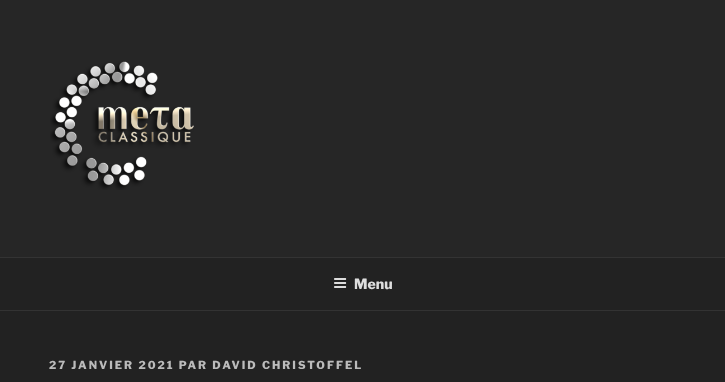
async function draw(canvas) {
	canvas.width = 725;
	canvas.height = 382;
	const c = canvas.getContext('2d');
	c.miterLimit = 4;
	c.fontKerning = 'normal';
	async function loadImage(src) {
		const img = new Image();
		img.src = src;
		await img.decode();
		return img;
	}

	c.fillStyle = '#222';
	c.fillRect(0, 0, 725, 382);
	c.fillStyle = '#262626';
	c.fillRect(0, 0, 725, 257);
	c.drawImage(await loadImage('img1.png'), 50, 61, 144, 129);
	c.fillStyle = '#333';
	c.fillRect(0, 257, 725, 1);
	c.fillRect(0, 310, 725, 1);
	c.drawImage(await loadImage('img2.png'), 334, 278, 13, 10);
	c.font = '800 14px Libre Franklin';
	c.fillStyle = '#ddd';
	c.fillText('Menu', 354, 289);
	c.letterSpacing = '2px';
	c.font = '800 11px Libre Franklin';
	c.fillStyle = '#bbb';
	c.fillText('27 JANVIER 2021 PAR DAVID CHRISTOFFEL', 49, 369);
}

draw(document.querySelector('canvas'));
